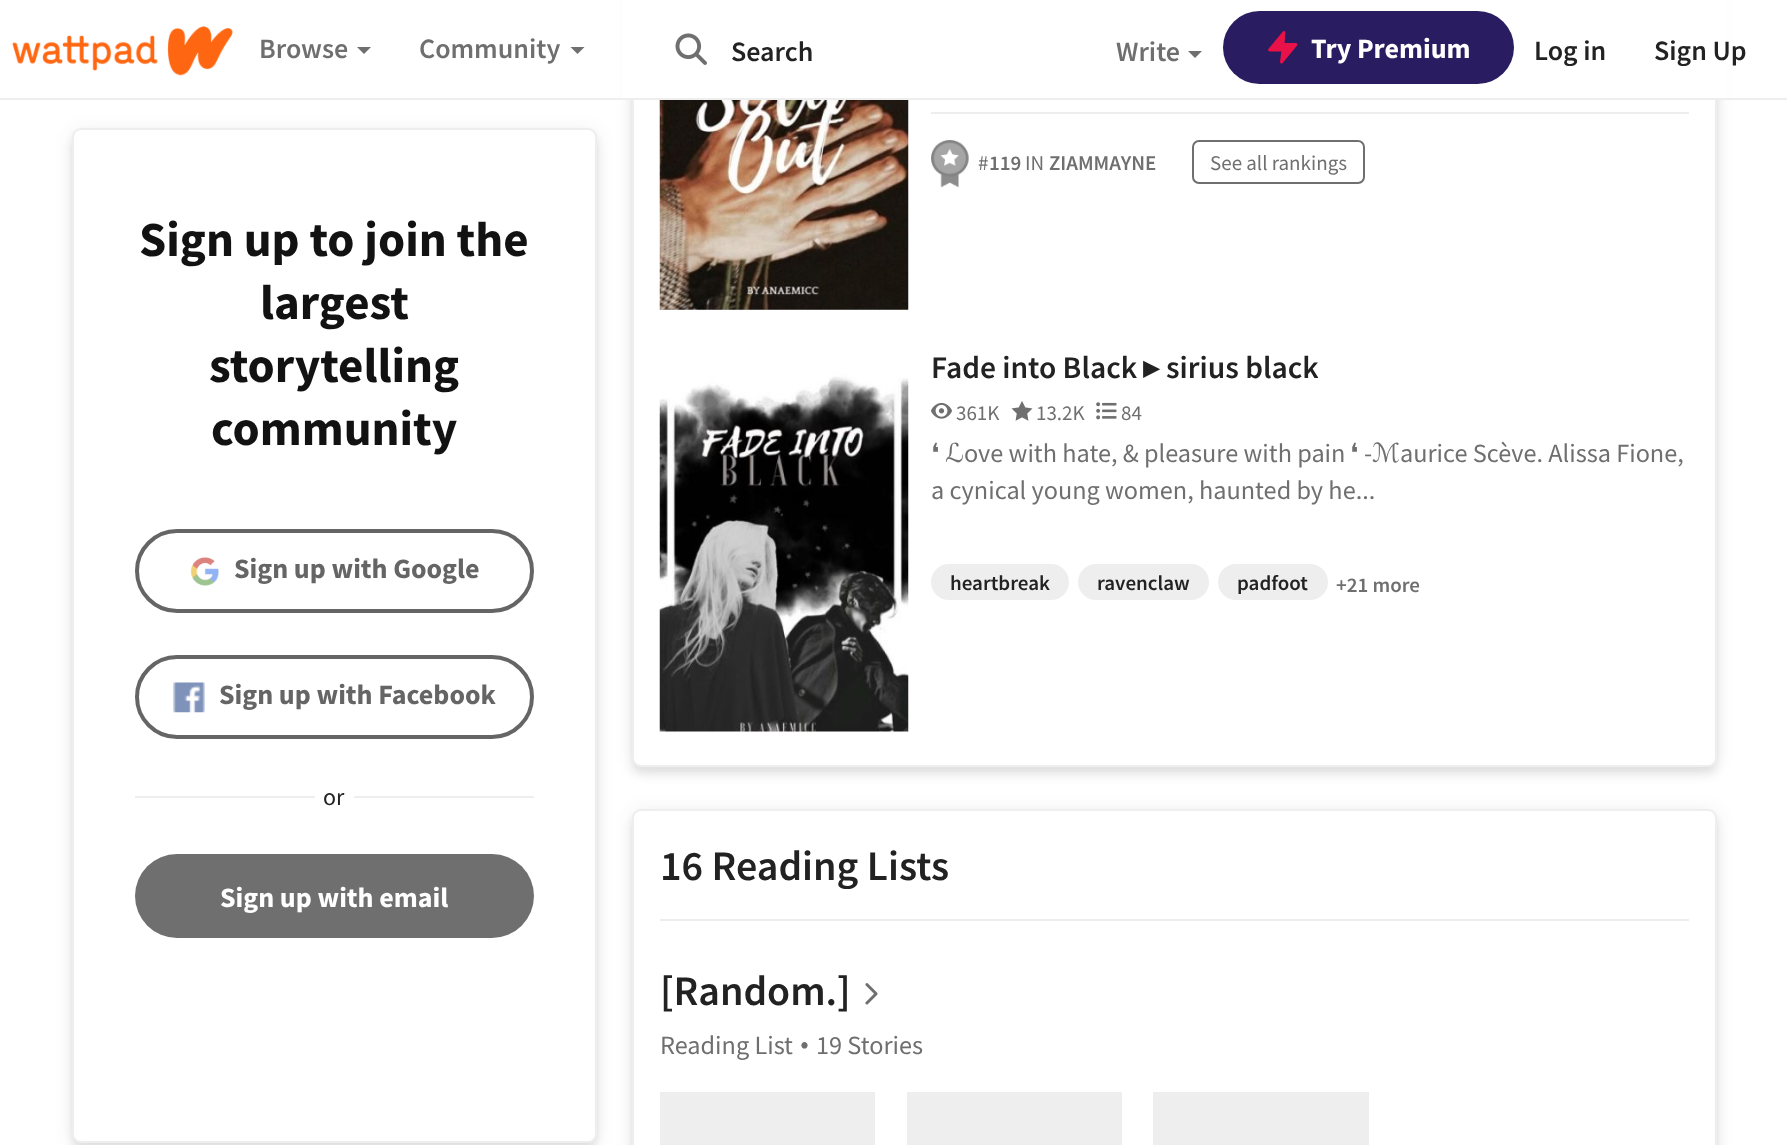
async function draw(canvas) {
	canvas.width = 1787;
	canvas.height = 1145;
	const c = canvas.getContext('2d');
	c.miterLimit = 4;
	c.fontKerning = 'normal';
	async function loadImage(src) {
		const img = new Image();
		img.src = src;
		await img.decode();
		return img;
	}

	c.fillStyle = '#fff';
	c.fillRect(0, 0, 1787, 1145);
	c.fillStyle = '#2222221a';
	c.filter = 'blur(4.5px)';
	c.beginPath();
	c.roundRect(632, -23, 1085, 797, 9);
	c.fill();
	c.filter = 'none';
	c.fillStyle = '#22222214';
	c.filter = 'blur(9px)';
	c.beginPath();
	c.roundRect(632, -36, 1085, 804, 9);
	c.fill();
	c.filter = 'none';
	c.fillStyle = '#fff';
	c.beginPath();
	c.roundRect(633, -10, 1083, 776, 8);
	c.fill();
	c.strokeStyle = '#eee';
	c.lineWidth = 2;
	c.stroke();
	c.fillRect(622, 0, 1105, 98);
	c.fillStyle = '#eee';
	c.fillRect(0, 98, 1787, 2);
	c.drawImage(await loadImage('img1.png'), 12, 26, 221, 50);
	c.font = '600 28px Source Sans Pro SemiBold';
	c.fillStyle = '#6f6f6f';
	c.fillText('Browse', 259, 58);
	c.beginPath();
	c.moveTo(357, 47);
	c.lineTo(371, 47);
	c.lineTo(364, 54);
	c.closePath();
	c.fill();
	c.fillText('Community', 419, 58);
	c.beginPath();
	c.moveTo(570.5, 47);
	c.lineTo(584.5, 47);
	c.lineTo(577.5, 54);
	c.closePath();
	c.fill();
	c.drawImage(await loadImage('img2.png'), 675, 33, 32, 32);
	c.fillStyle = '#222';
	c.fillText('Search', 731, 61);
	c.fillStyle = '#6f6f6f';
	c.fillText('Write', 1116, 61);
	c.beginPath();
	c.moveTo(1188, 51);
	c.lineTo(1202, 51);
	c.lineTo(1195, 58);
	c.closePath();
	c.fill();
	c.fillStyle = '#2a1c60';
	c.beginPath();
	c.roundRect(1223, 11, 291, 73, 36.5);
	c.fill();
	c.fillStyle = '#e81249';
	c.beginPath();
	c.moveTo(1284, 32.5);
	c.lineTo(1269.5, 50);
	c.lineTo(1283, 50);
	c.lineTo(1281.5, 62);
	c.lineTo(1296, 44.5);
	c.lineTo(1283, 44.5);
	c.closePath();
	c.fill();
	c.strokeStyle = '#e81249';
	c.lineWidth = 2.9;
	c.lineCap = 'round';
	c.lineJoin = 'round';
	c.stroke();
	c.font = 'bold 28px Source Sans Pro';
	c.fillStyle = '#fff';
	c.fillText('Try Premium', 1311, 58);
	c.font = '600 28px Source Sans Pro SemiBold';
	c.fillStyle = '#222';
	c.fillText('Log in', 1534, 60);
	c.fillText('Sign Up', 1654, 60);
	c.fillStyle = '#2222221a';
	c.filter = 'blur(4.5px)';
	c.beginPath();
	c.roundRect(72, 135, 525, 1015, 9);
	c.fill();
	c.filter = 'none';
	c.fillStyle = '#22222214';
	c.filter = 'blur(9px)';
	c.beginPath();
	c.roundRect(72, 130, 525, 1015, 9);
	c.fill();
	c.filter = 'none';
	c.fillStyle = '#fff';
	c.beginPath();
	c.roundRect(73, 129, 523, 1013, 8);
	c.fill();
	c.strokeStyle = '#eee';
	c.lineWidth = 2;
	c.lineJoin = 'miter';
	c.stroke();
	c.font = 'bold 49px Source Sans Pro';
	c.fillStyle = '#121212';
	for (const [text, x, y] of [
		['Sign up to join the', 139, 256],
		['largest', 260, 319],
		['storytelling', 209, 382],
		['community', 211, 445],
	]) {
		c.fillText(text, x, y);
	}
	c.beginPath();
	c.roundRect(137, 531, 395, 80, 40);
	c.strokeStyle = '#656565';
	c.lineWidth = 4;
	c.stroke();
	c.drawImage(await loadImage('img3.png'), 190, 557, 29, 29);
	c.font = 'bold 28px Source Sans Pro';
	c.fillStyle = '#656565';
	c.fillText('Sign up with Google', 234, 578);
	c.beginPath();
	c.roundRect(137, 657, 395, 80, 40);
	c.stroke();
	c.drawImage(await loadImage('img4.png'), 173, 682, 32, 31);
	c.fillText('Sign up with Facebook', 219, 704);
	c.fillStyle = '#eee';
	c.fillRect(135, 796, 180, 2);
	c.font = '24px Source Sans Pro';
	c.fillStyle = '#222';
	c.fillText('or', 323, 805);
	c.fillStyle = '#eee';
	c.fillRect(354, 796, 180, 2);
	c.fillStyle = '#6f6f6f';
	c.beginPath();
	c.roundRect(135, 854, 399, 84, 42);
	c.fill();
	c.font = 'bold 28px Source Sans Pro';
	c.fillStyle = '#fff';
	c.fillText('Sign up with email', 220, 907);
	c.drawImage(await loadImage('img5.png'), 659, 100, 250, 210);
	c.fillStyle = '#eee';
	c.fillRect(931, 112, 758, 2);
	c.drawImage(await loadImage('img6.png'), 931, 140, 38, 48);
	c.font = '21px Source Sans Pro';
	c.fillStyle = '#6f6f6f';
	c.fillText('#', 978, 170);
	c.font = '600 21px Source Sans Pro SemiBold';
	c.fillText('119', 989, 170);
	c.font = '21px Source Sans Pro';
	c.fillText('IN', 1025, 170);
	c.font = '600 21px Source Sans Pro SemiBold';
	c.fillText('ZIAMMAYNE', 1049, 170);
	c.beginPath();
	c.roundRect(1193, 141, 171, 42, 6);
	c.strokeStyle = '#6f6f6f';
	c.lineWidth = 2;
	c.stroke();
	c.font = '21px Source Sans Pro';
	c.fillText('See all rankings', 1210, 170);
	c.drawImage(await loadImage('img7.png'), 659, 343, 250, 389);
	c.font = '600 31.5px Source Sans Pro SemiBold';
	c.fillStyle = '#222';
	c.fillText('Fade into Black', 931, 378);
	c.font = 'bold 31.5px DejaVu Sans';
	c.fillText('▸', 1143, 378);
	c.font = '600 31.5px Source Sans Pro SemiBold';
	c.fillText('sirius black', 1166, 378);
	c.drawImage(await loadImage('img8.png'), 931, 402, 21, 17);
	c.font = '21px Source Sans Pro';
	c.fillStyle = '#6f6f6f';
	c.fillText('361K', 956, 420);
	c.drawImage(await loadImage('img9.png'), 1011, 401, 22, 20);
	c.fillText('13.2K', 1036, 420);
	c.drawImage(await loadImage('img10.png'), 1096, 402, 21, 18);
	c.fillText('84', 1121, 420);
	c.font = '26.25px DejaVu Sans';
	c.fillText('❛', 931, 462);
	c.fillText('ℒ', 945, 462);
	c.font = '26.25px Source Sans Pro';
	c.fillText('ove with hate, & pleasure with pain', 964, 462);
	c.font = '26.25px DejaVu Sans';
	c.fillText('❛', 1350, 462);
	c.font = '26.25px Source Sans Pro';
	c.fillText('-', 1364, 462);
	c.font = '26.25px DejaVu Sans';
	c.fillText('ℳ', 1372, 462);
	c.font = '26.25px Source Sans Pro';
	c.fillText('aurice Scève. Alissa Fione,', 1400, 462);
	c.fillText('a cynical young women, haunted by he...', 931, 499);
	c.fillStyle = '#eee';
	c.beginPath();
	c.roundRect(932, 565, 136, 34, 17);
	c.fill();
	c.strokeStyle = '#eee';
	c.stroke();
	c.font = '600 21px Source Sans Pro SemiBold';
	c.fillStyle = '#222';
	c.fillText('heartbreak', 950, 590);
	c.fillStyle = '#eee';
	c.beginPath();
	c.roundRect(1079, 565, 129, 34, 17);
	c.fill();
	c.stroke();
	c.fillStyle = '#222';
	c.fillText('ravenclaw', 1097, 590);
	c.fillStyle = '#eee';
	c.beginPath();
	c.roundRect(1219, 565, 108, 34, 17);
	c.fill();
	c.stroke();
	c.fillStyle = '#222';
	c.fillText('padfoot', 1237, 590);
	c.fillStyle = '#6f6f6f';
	c.fillText('+21 more', 1336, 592);
	c.fillStyle = '#2222221a';
	c.filter = 'blur(4.5px)';
	c.beginPath();
	c.roundRect(632, 816, 1085, 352, 9);
	c.fill();
	c.filter = 'none';
	c.fillStyle = '#22222214';
	c.filter = 'blur(9px)';
	c.beginPath();
	c.roundRect(632, 810, 1085, 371, 9);
	c.fill();
	c.filter = 'none';
	c.fillStyle = '#fff';
	c.beginPath();
	c.roundRect(633, 810, 1083, 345, 8);
	c.fill();
	c.stroke();
	c.font = '600 42px Source Sans Pro SemiBold';
	c.fillStyle = '#222';
	c.fillText('16 Reading Lists', 660, 880);
	c.fillStyle = '#eee';
	c.fillRect(660, 919, 1029, 2);
	c.fillStyle = '#222';
	c.fillText('[Random.]', 660, 1005);
	c.drawImage(await loadImage('img11.png'), 865, 983, 13, 22);
	c.font = '26.25px Source Sans Pro';
	c.fillStyle = '#6f6f6f';
	c.fillText('Reading List', 660, 1054);
	c.font = '52px Source Sans Pro';
	c.fillText('·', 798, 1062);
	c.font = '26.25px Source Sans Pro';
	c.fillText('19 Stories', 816, 1054);
	for (const [x, y, w, h, color] of [
		[660, 1092, 215, 53, '#eee'],
		[907, 1092, 215, 53, '#eee'],
		[1153, 1092, 216, 53, '#eee'],
	]) {
		c.fillStyle = color;
		c.fillRect(x, y, w, h);
	}
}

draw(document.querySelector('canvas'));
